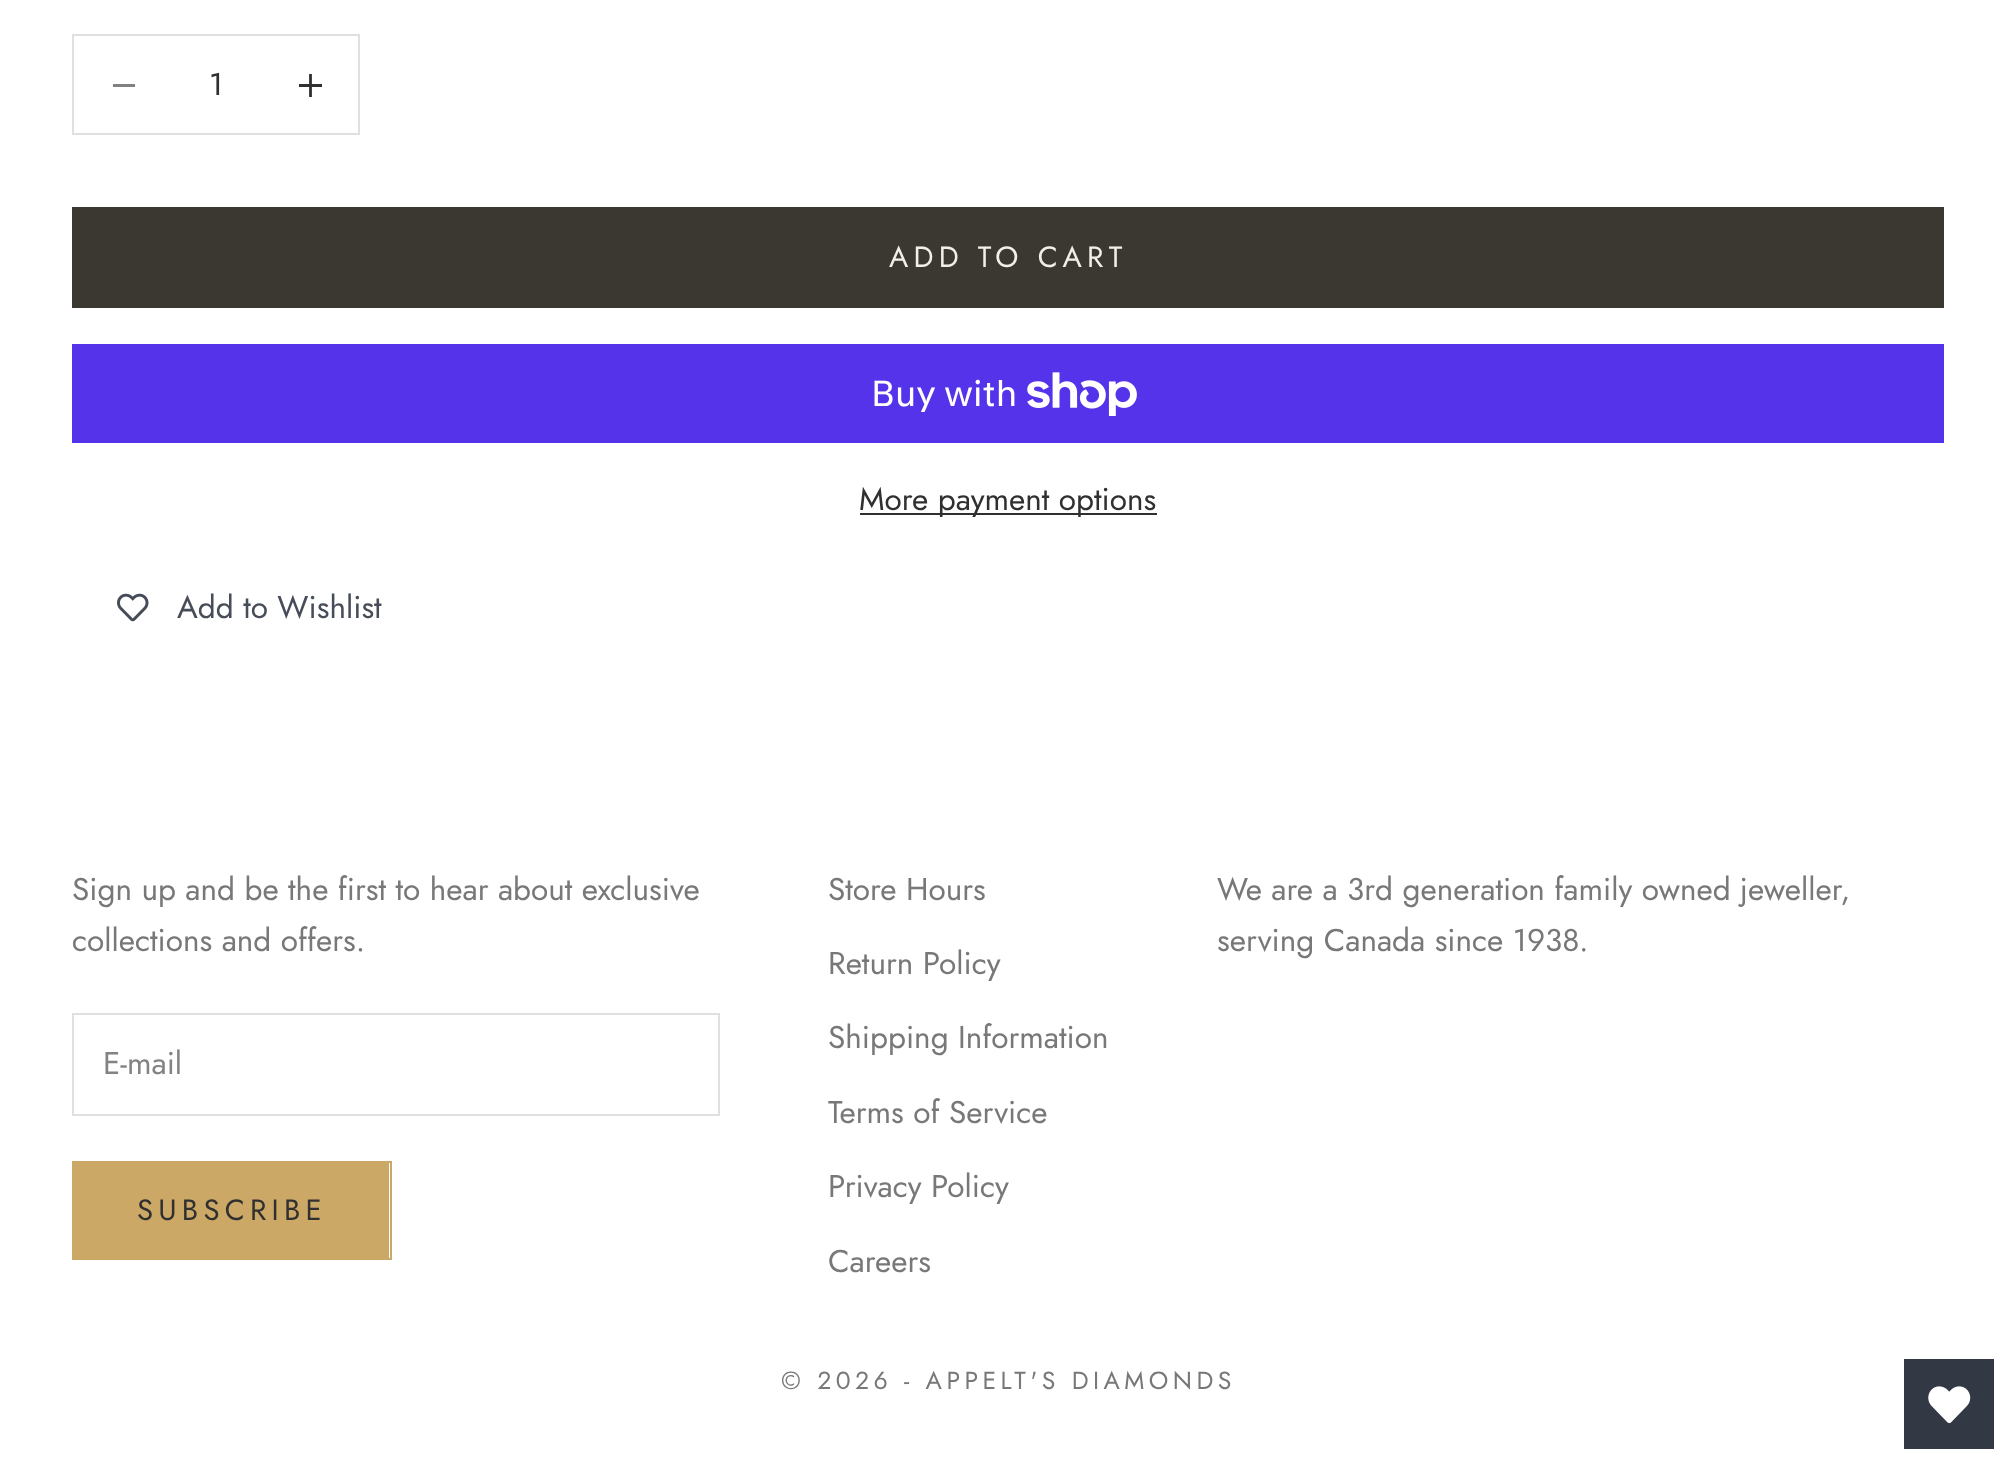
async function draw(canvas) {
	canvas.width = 2014;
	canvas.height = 1470;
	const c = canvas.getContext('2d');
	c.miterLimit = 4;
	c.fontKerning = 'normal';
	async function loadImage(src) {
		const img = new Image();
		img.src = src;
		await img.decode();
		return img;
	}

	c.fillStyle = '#fff';
	c.fillRect(0, 0, 2014, 1470);
	c.strokeStyle = '#e0e0e0';
	c.lineWidth = 2;
	c.strokeRect(73, 35, 286, 99);
	c.fillStyle = '#818181';
	c.fillRect(113, 84, 22, 3);
	c.font = '31.5px Jost';
	c.fillStyle = '#303030';
	c.fillText('1', 209, 95);
	c.beginPath();
	c.moveTo(310.5, 74);
	c.lineTo(310.5, 97);
	c.moveTo(299, 85.5);
	c.lineTo(322, 85.5);
	c.strokeStyle = '#303030';
	c.lineWidth = 2.8;
	c.stroke();
	c.fillStyle = '#3b3832';
	c.beginPath();
	c.rect(73, 208, 1870, 99);
	c.fill();
	c.strokeStyle = '#3b3832';
	c.lineWidth = 2;
	c.stroke();
	c.letterSpacing = '5.25px';
	c.font = '29.25px Jost';
	c.fillStyle = '#f1efe9';
	c.fillText('ADD TO CART', 889, 267);
	c.fillStyle = '#5433eb';
	c.fillRect(72, 344, 1872, 99);
	c.letterSpacing = '0px';
	c.font = '36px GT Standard';
	c.fillStyle = '#fff';
	c.fillText('Buy with', 871, 406);
	c.drawImage(await loadImage('img1.png'), 1027, 372, 110, 44);
	c.fillStyle = '#303030';
	c.fillRect(860, 513, 297, 2);
	c.font = '31.5px Jost';
	c.fillText('More payment options', 859, 510);
	c.drawImage(await loadImage('img2.png'), 117, 593, 32, 29);
	c.fillStyle = '#474d58';
	c.fillText('Add to Wishlist', 177, 618);
	c.fillStyle = '#787878';
	c.fillText('Sign up and be the first to hear about exclusive', 72, 900);
	c.fillText('collections and offers.', 72, 951);
	c.strokeStyle = '#e0e0e0';
	c.strokeRect(73, 1014, 646, 101);
	c.fillStyle = '#838383';
	c.fillText('E-mail', 103, 1074);
	c.fillStyle = '#cca866';
	c.fillRect(74, 1163, 315, 95);
	c.strokeStyle = '#cca866';
	c.strokeRect(73, 1162, 318, 97);
	c.letterSpacing = '5.25px';
	c.font = '29.25px Jost';
	c.fillStyle = '#303030';
	c.fillText('SUBSCRIBE', 137, 1220);
	c.letterSpacing = '0px';
	c.font = '31.5px Jost';
	c.fillStyle = '#787878';
	for (const [text, x, y] of [
		['Store Hours', 828, 900],
		['Return Policy', 828, 974],
		['Shipping Information', 828, 1048],
		['Terms of Service', 828, 1123],
		['Privacy Policy', 828, 1197],
		['Careers', 828, 1272],
		['We are a 3rd generation family owned jeweller,', 1217, 900],
		['serving Canada since 1938.', 1217, 951],
	]) {
		c.fillText(text, x, y);
	}
	c.letterSpacing = '4.45px';
	c.font = '24.75px Jost';
	c.fillText('© 2026 - APPELT\'S DIAMONDS', 781, 1389);
	c.fillStyle = '#323945';
	c.fillRect(1904, 1359, 90, 90);
	c.drawImage(await loadImage('img3.png'), 1928, 1386, 43, 38);
}

draw(document.querySelector('canvas'));
